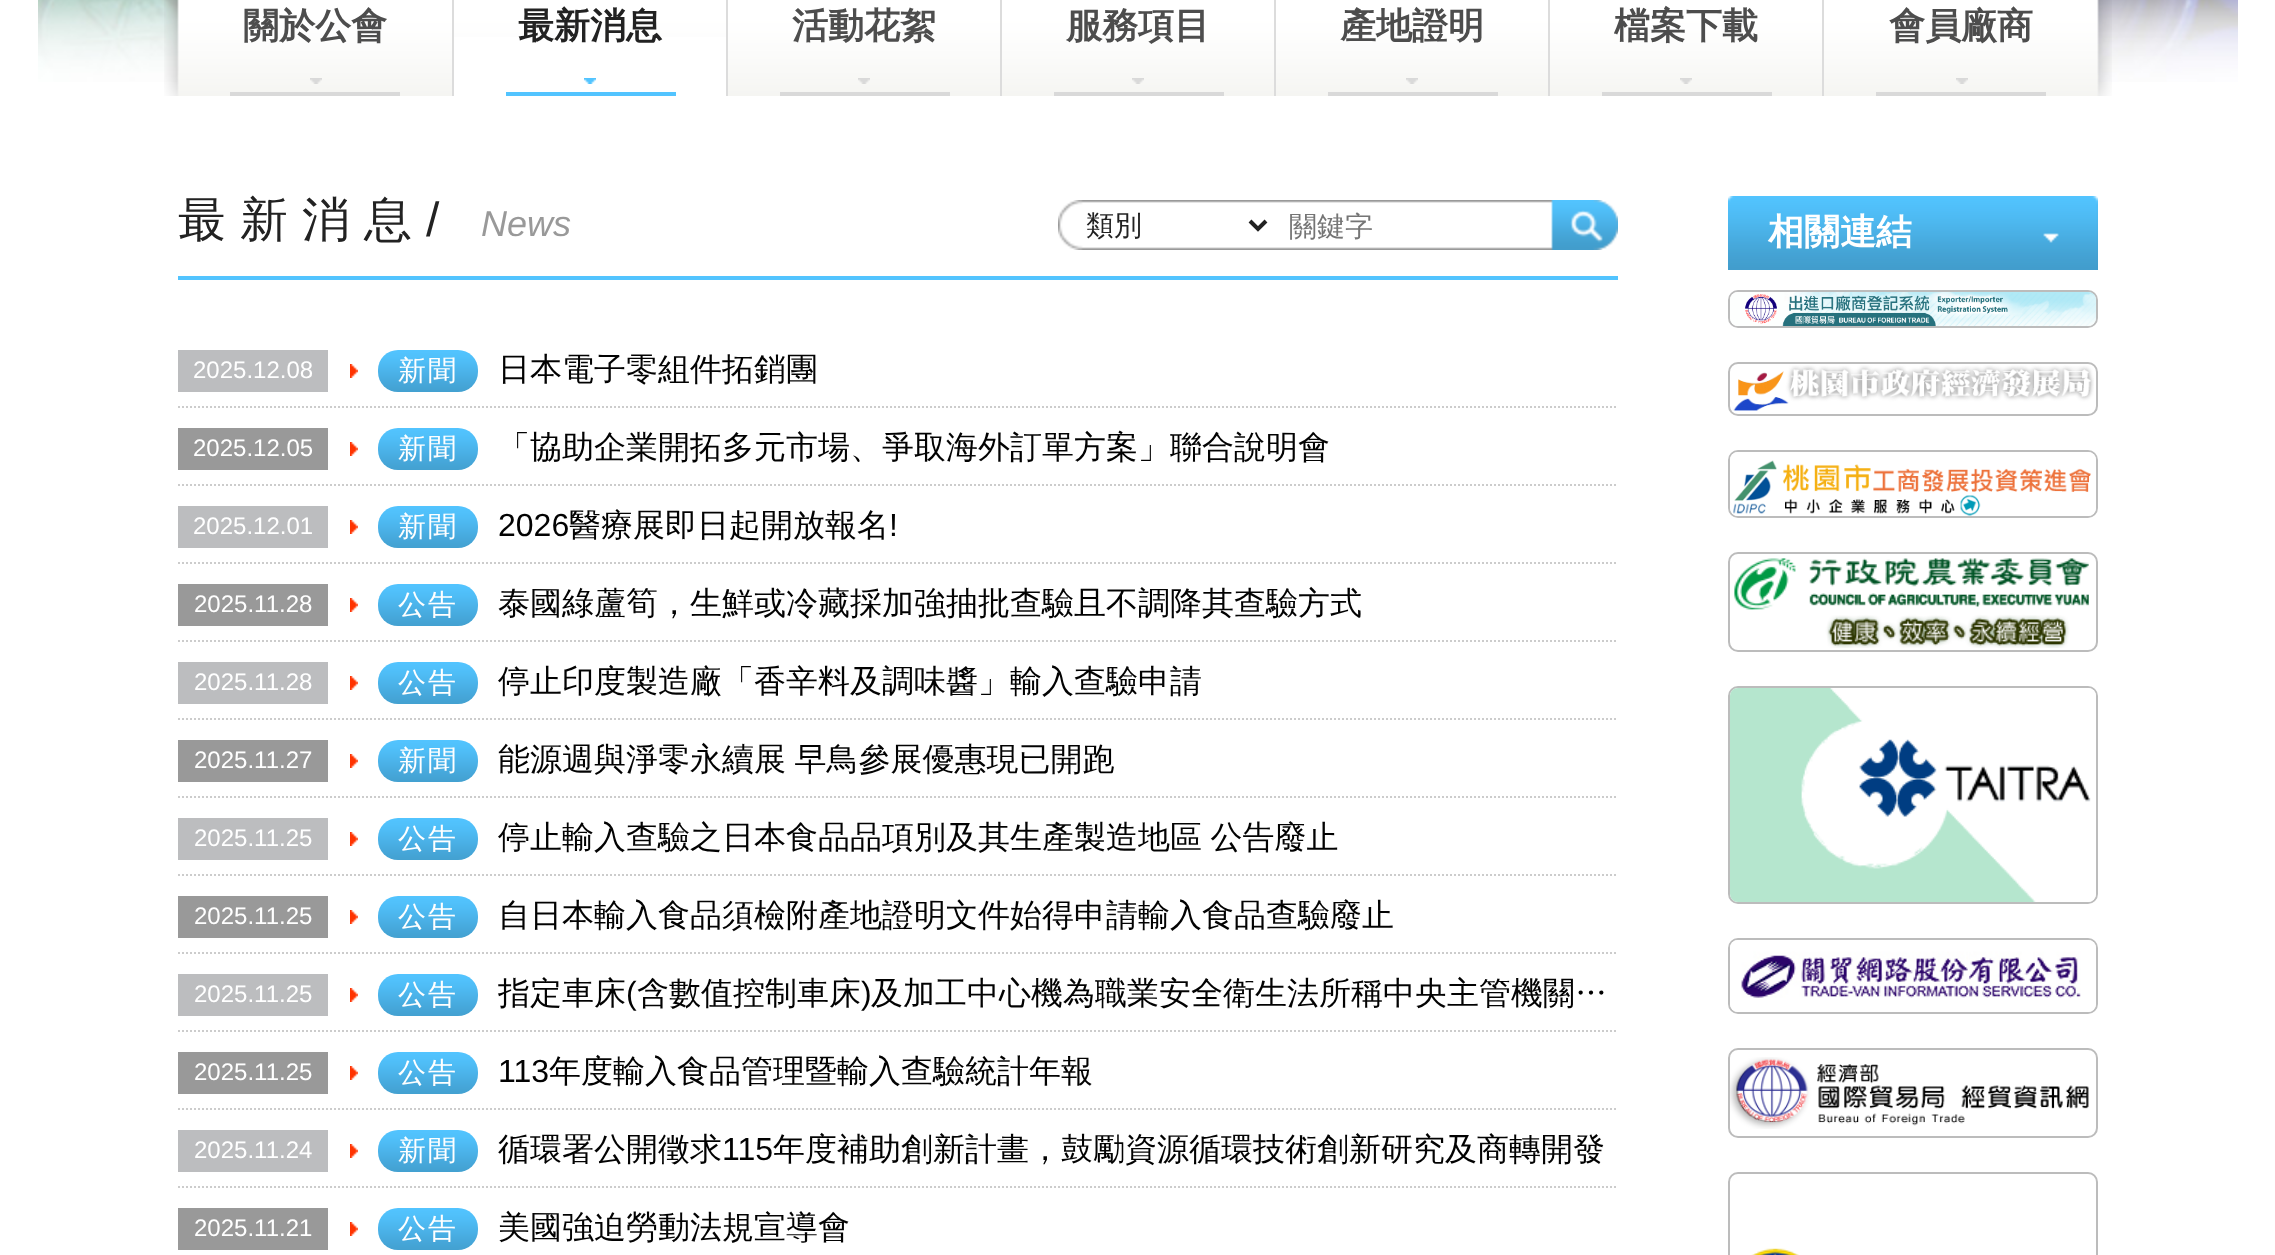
async function draw(canvas) {
	canvas.width = 2275;
	canvas.height = 1255;
	const c = canvas.getContext('2d');
	c.miterLimit = 4;
	c.fontKerning = 'normal';
	async function loadImage(src) {
		const img = new Image();
		img.src = src;
		await img.decode();
		return img;
	}

	c.fillStyle = '#fff';
	c.fillRect(0, 0, 2275, 1255);
	c.drawImage(await loadImage('img1.png'), 38, 0, 2200, 82);
	c.drawImage(await loadImage('img2.png'), 164, 0, 1948, 96);
	c.fillStyle = '#dcdcdc';
	c.fillRect(452, 0, 2, 96);
	c.font = 'bold 36px WenQuanYi Zen Hei';
	c.fillStyle = '#4d4d4d';
	c.fillText('關於公會', 243, 38);
	c.drawImage(await loadImage('img3.png'), 310, 78, 12, 6);
	for (const [x, y, w, h, color] of [
		[230, 92, 170, 4, '#d9d9d9'],
		[454, 37, 272, 59, '#fff'],
		[726, 0, 2, 96, '#dcdcdc'],
	]) {
		c.fillStyle = color;
		c.fillRect(x, y, w, h);
	}
	c.fillStyle = '#222';
	c.fillText('最新消息', 518, 38);
	c.drawImage(await loadImage('img4.png'), 584, 78, 12, 6);
	c.fillStyle = '#52c4ff';
	c.fillRect(506, 92, 170, 4);
	c.fillStyle = '#dcdcdc';
	c.fillRect(1000, 0, 2, 96);
	c.fillStyle = '#4d4d4d';
	c.fillText('活動花絮', 792, 38);
	c.drawImage(await loadImage('img3.png'), 858, 78, 12, 6);
	c.fillStyle = '#d9d9d9';
	c.fillRect(780, 92, 170, 4);
	c.fillStyle = '#dcdcdc';
	c.fillRect(1274, 0, 2, 96);
	c.fillStyle = '#4d4d4d';
	c.fillText('服務項目', 1066, 38);
	c.drawImage(await loadImage('img3.png'), 1132, 78, 12, 6);
	c.fillStyle = '#d9d9d9';
	c.fillRect(1054, 92, 170, 4);
	c.fillStyle = '#dcdcdc';
	c.fillRect(1548, 0, 2, 96);
	c.fillStyle = '#4d4d4d';
	c.fillText('產地證明', 1340, 38);
	c.drawImage(await loadImage('img3.png'), 1406, 78, 12, 6);
	c.fillStyle = '#d9d9d9';
	c.fillRect(1328, 92, 170, 4);
	c.fillStyle = '#dcdcdc';
	c.fillRect(1822, 0, 2, 96);
	c.fillStyle = '#4d4d4d';
	c.fillText('檔案下載', 1614, 38);
	c.drawImage(await loadImage('img3.png'), 1680, 78, 12, 6);
	c.fillStyle = '#d9d9d9';
	c.fillRect(1602, 92, 170, 4);
	c.fillStyle = '#4d4d4d';
	c.fillText('會員廠商', 1889, 38);
	c.drawImage(await loadImage('img3.png'), 1956, 78, 12, 6);
	c.fillStyle = '#d9d9d9';
	c.fillRect(1876, 92, 170, 4);
	c.fillStyle = '#52c4ff';
	c.fillRect(178, 276, 1440, 4);
	c.letterSpacing = '14px';
	c.font = '500 48px WenQuanYi Zen Hei';
	c.fillStyle = '#222';
	c.fillText('最新消息', 178, 236);
	c.font = '48px Liberation Sans';
	c.fillText('/', 426, 236);
	c.letterSpacing = '0px';
	c.font = 'italic 36px Liberation Sans';
	c.fillStyle = '#999';
	c.fillText('News', 481, 236);
	c.drawImage(await loadImage('img5.png'), 1058, 200, 560, 50);
	c.beginPath();
	c.moveTo(1250, 221);
	c.lineTo(1258, 229);
	c.lineTo(1266, 221);
	c.strokeStyle = '#222';
	c.lineWidth = 4;
	c.stroke();
	c.font = '500 28px WenQuanYi Zen Hei';
	c.fillStyle = '#222';
	c.fillText('類別', 1086, 235);
	c.fillStyle = '#757575';
	c.fillText('關鍵字', 1289, 236);
	c.drawImage(await loadImage('img6.png'), 1570, 210, 33, 33);
	c.beginPath();
	c.moveTo(178, 407);
	c.lineTo(1618, 407);
	c.strokeStyle = '#ccc';
	c.lineWidth = 2;
	c.setLineDash([2, 2]);
	c.stroke();
	c.fillStyle = '#bcbdbf';
	c.fillRect(178, 350, 150, 42);
	c.font = '24px Liberation Sans';
	c.fillStyle = '#fff';
	c.fillText('2025.12.08', 193, 378);
	c.drawImage(await loadImage('img7.png'), 350, 364, 8, 14);
	c.drawImage(await loadImage('img8.png'), 378, 350, 100, 42);
	c.letterSpacing = '2px';
	c.font = '500 28px WenQuanYi Zen Hei';
	c.fillText('新聞', 398, 380);
	c.letterSpacing = '0px';
	c.font = '500 32px WenQuanYi Zen Hei';
	c.fillStyle = '#020202';
	c.fillText('日本電子零組件拓銷團', 498, 380);
	c.beginPath();
	c.moveTo(178, 485);
	c.lineTo(1618, 485);
	c.stroke();
	c.fillStyle = '#999';
	c.fillRect(178, 428, 150, 42);
	c.font = '24px Liberation Sans';
	c.fillStyle = '#fff';
	c.fillText('2025.12.05', 193, 456);
	c.drawImage(await loadImage('img7.png'), 350, 442, 8, 14);
	c.drawImage(await loadImage('img8.png'), 378, 428, 100, 42);
	c.letterSpacing = '2px';
	c.font = '500 28px WenQuanYi Zen Hei';
	c.fillText('新聞', 398, 458);
	c.letterSpacing = '0px';
	c.font = '500 32px WenQuanYi Zen Hei';
	c.fillStyle = '#020202';
	c.fillText('「協助企業開拓多元市場、爭取海外訂單方案」聯合說明會', 498, 458);
	c.beginPath();
	c.moveTo(178, 563);
	c.lineTo(1618, 563);
	c.stroke();
	c.fillStyle = '#bcbdbf';
	c.fillRect(178, 506, 150, 42);
	c.font = '24px Liberation Sans';
	c.fillStyle = '#fff';
	c.fillText('2025.12.01', 193, 534);
	c.drawImage(await loadImage('img7.png'), 350, 520, 8, 14);
	c.drawImage(await loadImage('img8.png'), 378, 506, 100, 42);
	c.letterSpacing = '2px';
	c.font = '500 28px WenQuanYi Zen Hei';
	c.fillText('新聞', 398, 536);
	c.letterSpacing = '0px';
	c.font = '32px Liberation Sans';
	c.fillStyle = '#020202';
	c.fillText('2026', 498, 536);
	c.font = '500 32px WenQuanYi Zen Hei';
	c.fillText('醫療展即日起開放報名', 569, 536);
	c.font = '32px Liberation Sans';
	c.fillText('!', 889, 536);
	c.beginPath();
	c.moveTo(178, 641);
	c.lineTo(1618, 641);
	c.stroke();
	c.fillStyle = '#999';
	c.fillRect(178, 584, 150, 42);
	c.font = '24px Liberation Sans';
	c.fillStyle = '#fff';
	c.fillText('2025.11.28', 194, 612);
	c.drawImage(await loadImage('img7.png'), 350, 598, 8, 14);
	c.drawImage(await loadImage('img9.png'), 378, 584, 100, 42);
	c.letterSpacing = '2px';
	c.font = '500 28px WenQuanYi Zen Hei';
	c.fillText('公告', 398, 614);
	c.letterSpacing = '0px';
	c.font = '500 32px WenQuanYi Zen Hei';
	c.fillStyle = '#020202';
	c.fillText('泰國綠蘆筍，生鮮或冷藏採加強抽批查驗且不調降其查驗方式', 498, 614);
	c.beginPath();
	c.moveTo(178, 719);
	c.lineTo(1618, 719);
	c.stroke();
	c.fillStyle = '#bcbdbf';
	c.fillRect(178, 662, 150, 42);
	c.font = '24px Liberation Sans';
	c.fillStyle = '#fff';
	c.fillText('2025.11.28', 194, 690);
	c.drawImage(await loadImage('img7.png'), 350, 676, 8, 14);
	c.drawImage(await loadImage('img8.png'), 378, 662, 100, 42);
	c.letterSpacing = '2px';
	c.font = '500 28px WenQuanYi Zen Hei';
	c.fillText('公告', 398, 692);
	c.letterSpacing = '0px';
	c.font = '500 32px WenQuanYi Zen Hei';
	c.fillStyle = '#020202';
	c.fillText('停止印度製造廠「香辛料及調味醬」輸入查驗申請', 498, 692);
	c.beginPath();
	c.moveTo(178, 797);
	c.lineTo(1618, 797);
	c.stroke();
	c.fillStyle = '#999';
	c.fillRect(178, 740, 150, 42);
	c.font = '24px Liberation Sans';
	c.fillStyle = '#fff';
	c.fillText('2025.11.27', 194, 768);
	c.drawImage(await loadImage('img7.png'), 350, 754, 8, 14);
	c.drawImage(await loadImage('img8.png'), 378, 740, 100, 42);
	c.letterSpacing = '2px';
	c.font = '500 28px WenQuanYi Zen Hei';
	c.fillText('新聞', 398, 770);
	c.letterSpacing = '0px';
	c.wordSpacing = '-1px';
	c.font = '500 32px WenQuanYi Zen Hei';
	c.fillStyle = '#020202';
	c.fillText('能源週與淨零永續展 早鳥參展優惠現已開跑', 498, 770);
	c.beginPath();
	c.moveTo(178, 875);
	c.lineTo(1618, 875);
	c.stroke();
	c.fillStyle = '#bcbdbf';
	c.fillRect(178, 818, 150, 42);
	c.wordSpacing = '0px';
	c.font = '24px Liberation Sans';
	c.fillStyle = '#fff';
	c.fillText('2025.11.25', 194, 846);
	c.drawImage(await loadImage('img7.png'), 350, 832, 8, 14);
	c.drawImage(await loadImage('img10.png'), 378, 818, 100, 42);
	c.letterSpacing = '2px';
	c.font = '500 28px WenQuanYi Zen Hei';
	c.fillText('公告', 398, 848);
	c.letterSpacing = '0px';
	c.wordSpacing = '-1px';
	c.font = '500 32px WenQuanYi Zen Hei';
	c.fillStyle = '#020202';
	c.fillText('停止輸入查驗之日本食品品項別及其生產製造地區 公告廢止', 498, 848);
	c.beginPath();
	c.moveTo(178, 953);
	c.lineTo(1618, 953);
	c.stroke();
	c.fillStyle = '#999';
	c.fillRect(178, 896, 150, 42);
	c.wordSpacing = '0px';
	c.font = '24px Liberation Sans';
	c.fillStyle = '#fff';
	c.fillText('2025.11.25', 194, 924);
	c.drawImage(await loadImage('img7.png'), 350, 910, 8, 14);
	c.drawImage(await loadImage('img8.png'), 378, 896, 100, 42);
	c.letterSpacing = '2px';
	c.font = '500 28px WenQuanYi Zen Hei';
	c.fillText('公告', 398, 926);
	c.letterSpacing = '0px';
	c.font = '500 32px WenQuanYi Zen Hei';
	c.fillStyle = '#020202';
	c.fillText('自日本輸入食品須檢附產地證明文件始得申請輸入食品查驗廢止', 498, 926);
	c.beginPath();
	c.moveTo(178, 1031);
	c.lineTo(1618, 1031);
	c.stroke();
	c.fillStyle = '#bcbdbf';
	c.fillRect(178, 974, 150, 42);
	c.font = '24px Liberation Sans';
	c.fillStyle = '#fff';
	c.fillText('2025.11.25', 194, 1002);
	c.drawImage(await loadImage('img7.png'), 350, 988, 8, 14);
	c.drawImage(await loadImage('img8.png'), 378, 974, 100, 42);
	c.letterSpacing = '2px';
	c.font = '500 28px WenQuanYi Zen Hei';
	c.fillText('公告', 398, 1004);
	c.letterSpacing = '0px';
	c.font = '500 32px WenQuanYi Zen Hei';
	c.fillStyle = '#020202';
	c.fillText('指定車床', 498, 1004);
	c.font = '32px Liberation Sans';
	c.fillText('(', 626, 1004);
	c.font = '500 32px WenQuanYi Zen Hei';
	c.fillText('含數值控制車床', 637, 1004);
	c.font = '32px Liberation Sans';
	c.fillText(')', 861, 1004);
	c.font = '500 32px WenQuanYi Zen Hei';
	c.fillText('及加工中心機為職業安全衛生法所稱中央主管機關…', 871, 1004);
	c.beginPath();
	c.moveTo(178, 1109);
	c.lineTo(1618, 1109);
	c.stroke();
	c.fillStyle = '#999';
	c.fillRect(178, 1052, 150, 42);
	c.font = '24px Liberation Sans';
	c.fillStyle = '#fff';
	c.fillText('2025.11.25', 194, 1080);
	c.drawImage(await loadImage('img7.png'), 350, 1066, 8, 14);
	c.drawImage(await loadImage('img8.png'), 378, 1052, 100, 42);
	c.letterSpacing = '2px';
	c.font = '500 28px WenQuanYi Zen Hei';
	c.fillText('公告', 398, 1082);
	c.letterSpacing = '0px';
	c.font = '32px Liberation Sans';
	c.fillStyle = '#020202';
	c.fillText('113', 498, 1082);
	c.font = '500 32px WenQuanYi Zen Hei';
	c.fillText('年度輸入食品管理暨輸入查驗統計年報', 549, 1082);
	c.beginPath();
	c.moveTo(178, 1187);
	c.lineTo(1618, 1187);
	c.stroke();
	c.fillStyle = '#bcbdbf';
	c.fillRect(178, 1130, 150, 42);
	c.font = '24px Liberation Sans';
	c.fillStyle = '#fff';
	c.fillText('2025.11.24', 194, 1158);
	c.drawImage(await loadImage('img7.png'), 350, 1144, 8, 14);
	c.drawImage(await loadImage('img8.png'), 378, 1130, 100, 42);
	c.letterSpacing = '2px';
	c.font = '500 28px WenQuanYi Zen Hei';
	c.fillText('新聞', 398, 1160);
	c.letterSpacing = '0px';
	c.font = '500 32px WenQuanYi Zen Hei';
	c.fillStyle = '#020202';
	c.fillText('循環署公開徵求', 498, 1160);
	c.font = '32px Liberation Sans';
	c.fillText('115', 722, 1160);
	c.font = '500 32px WenQuanYi Zen Hei';
	c.fillText('年度補助創新計畫，鼓勵資源循環技術創新研究及商轉開發', 773, 1160);
	c.fillStyle = '#999';
	c.fillRect(178, 1208, 150, 42);
	c.font = '24px Liberation Sans';
	c.fillStyle = '#fff';
	c.fillText('2025.11.21', 194, 1236);
	c.drawImage(await loadImage('img7.png'), 350, 1222, 8, 14);
	c.drawImage(await loadImage('img8.png'), 378, 1208, 100, 42);
	c.letterSpacing = '2px';
	c.font = '500 28px WenQuanYi Zen Hei';
	c.fillText('公告', 398, 1238);
	c.letterSpacing = '0px';
	c.font = '500 32px WenQuanYi Zen Hei';
	c.fillStyle = '#020202';
	c.fillText('美國強迫勞動法規宣導會', 498, 1238);
	c.drawImage(await loadImage('img11.png'), 1728, 196, 370, 74);
	c.font = 'bold 36px WenQuanYi Zen Hei';
	c.fillStyle = '#fff';
	c.fillText('相關連結', 1768, 244);
	c.beginPath();
	c.roundRect(1729, 291, 368, 36, 9);
	c.strokeStyle = '#bcbcbc';
	c.setLineDash([]);
	c.stroke();
	c.drawImage(await loadImage('img12.png'), 1730, 292, 366, 34);
	c.beginPath();
	c.roundRect(1729, 363, 368, 52, 9);
	c.stroke();
	c.drawImage(await loadImage('img13.png'), 1733, 365, 361, 46);
	c.beginPath();
	c.roundRect(1729, 451, 368, 66, 9);
	c.stroke();
	c.drawImage(await loadImage('img14.png'), 1730, 452, 366, 64);
	c.beginPath();
	c.roundRect(1729, 553, 368, 98, 9);
	c.stroke();
	c.drawImage(await loadImage('img15.png'), 1734, 558, 355, 90);
	c.beginPath();
	c.roundRect(1729, 687, 368, 216, 9);
	c.stroke();
	c.drawImage(await loadImage('img16.png'), 1730, 688, 366, 214);
	c.beginPath();
	c.roundRect(1729, 939, 368, 74, 9);
	c.stroke();
	c.drawImage(await loadImage('img17.png'), 1730, 940, 366, 72);
	c.beginPath();
	c.roundRect(1729, 1049, 368, 88, 9);
	c.stroke();
	c.drawImage(await loadImage('img18.png'), 1730, 1057, 359, 72);
	c.beginPath();
	c.roundRect(1729, 1173, 368, 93, 9);
	c.stroke();
	c.drawImage(await loadImage('img19.png'), 1751, 1248, 48, 7);
}

draw(document.querySelector('canvas'));
